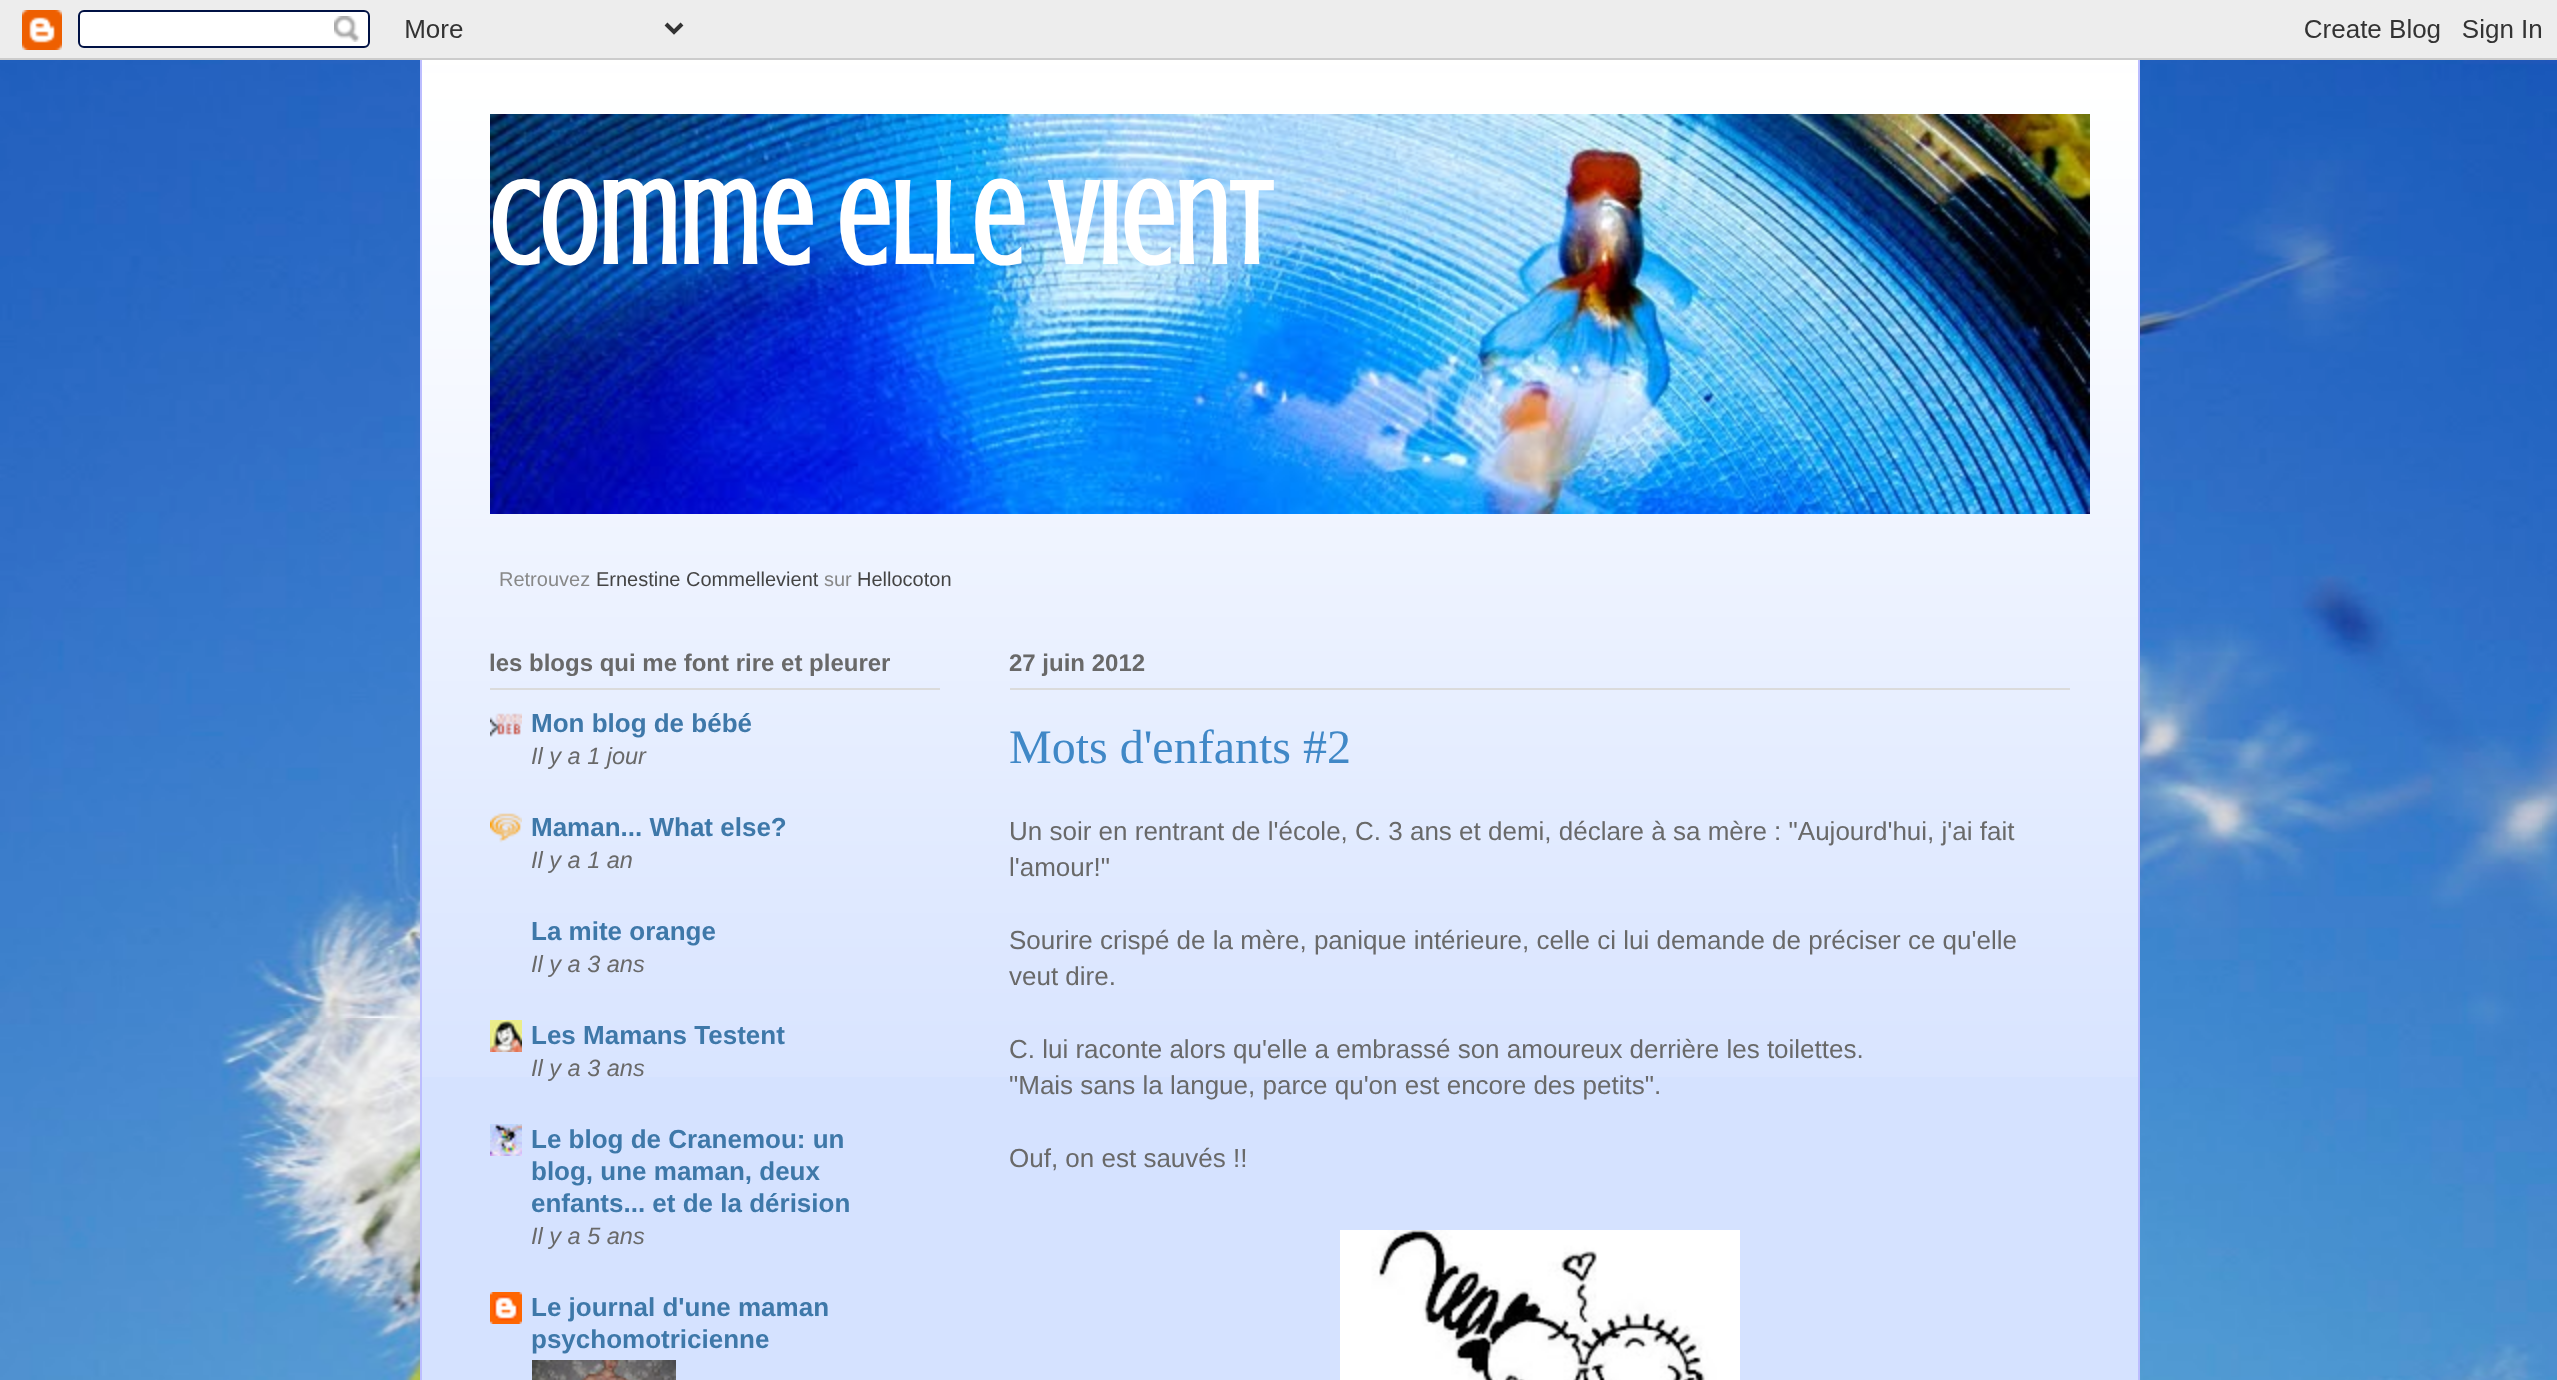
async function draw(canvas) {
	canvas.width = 2557;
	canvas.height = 1380;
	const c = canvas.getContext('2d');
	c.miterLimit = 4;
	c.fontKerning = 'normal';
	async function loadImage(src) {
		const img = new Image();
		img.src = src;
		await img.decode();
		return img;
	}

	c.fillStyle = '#fff';
	c.fillRect(0, 0, 2557, 1380);
	c.drawImage(await loadImage('img1.png'), 0, 60, 2557, 1320);
	c.drawImage(await loadImage('img2.png'), 0, 0, 2557, 60);
	c.fillStyle = '#d5e2ff';
	c.fillRect(422, 73, 1716, 1307);
	c.drawImage(await loadImage('img3.png'), 422, 60, 1716, 1017);
	c.fillStyle = '#bcbdff';
	c.fillRect(2138, 60, 2, 1320);
	c.fillRect(420, 60, 2, 1320);
	c.drawImage(await loadImage('img4.png'), 490, 114, 1600, 400);
	c.font = 'bold 120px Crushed';
	c.fillStyle = '#fff';
	c.fillText('Comme elle vient', 489, 264);
	c.font = '20px Liberation Sans';
	c.fillStyle = '#888';
	c.fillText('Retrouvez', 499, 586);
	c.fillStyle = '#444';
	c.fillText('Ernestine Commellevient', 596, 586);
	c.fillStyle = '#888';
	c.fillText('sur', 824, 586);
	c.fillStyle = '#444';
	c.fillText('Hellocoton', 857, 586);
	c.fillStyle = '#dbdbdb';
	c.fillRect(490, 688, 450, 2);
	c.font = 'bold 24px Liberation Sans';
	c.fillStyle = '#696969';
	c.fillText('les blogs qui me font rire et pleurer', 489, 671);
	c.drawImage(await loadImage('img5.png'), 490, 713, 32, 24);
	c.font = 'bold 26px Liberation Sans';
	c.fillStyle = '#3e78a9';
	c.fillText('Mon blog de bébé', 531, 732);
	c.font = 'italic 23.5px Liberation Sans';
	c.fillStyle = '#696969';
	c.fillText('Il y a 1 jour', 531, 764);
	c.drawImage(await loadImage('img6.png'), 490, 813, 32, 30);
	c.font = 'bold 26px Liberation Sans';
	c.fillStyle = '#3e78a9';
	c.fillText('Maman... What else?', 531, 836);
	c.font = 'italic 23.5px Liberation Sans';
	c.fillStyle = '#696969';
	c.fillText('Il y a 1 an', 531, 868);
	c.font = 'bold 26px Liberation Sans';
	c.fillStyle = '#3e78a9';
	c.fillText('La mite orange', 531, 940);
	c.font = 'italic 23.5px Liberation Sans';
	c.fillStyle = '#696969';
	c.fillText('Il y a 3 ans', 531, 972);
	c.drawImage(await loadImage('img7.png'), 490, 1020, 32, 32);
	c.font = 'bold 26px Liberation Sans';
	c.fillStyle = '#3e78a9';
	c.fillText('Les Mamans Testent', 531, 1044);
	c.font = 'italic 23.5px Liberation Sans';
	c.fillStyle = '#696969';
	c.fillText('Il y a 3 ans', 531, 1076);
	c.drawImage(await loadImage('img8.png'), 490, 1124, 32, 32);
	c.font = 'bold 26px Liberation Sans';
	c.fillStyle = '#3e78a9';
	for (const [text, x, y] of [
		['Le blog de Cranemou: un', 531, 1148],
		['blog, une maman, deux', 531, 1180],
		['enfants... et de la dérision', 531, 1212],
	]) {
		c.fillText(text, x, y);
	}
	c.font = 'italic 23.5px Liberation Sans';
	c.fillStyle = '#696969';
	c.fillText('Il y a 5 ans', 531, 1244);
	c.drawImage(await loadImage('img9.png'), 490, 1292, 32, 32);
	c.font = 'bold 26px Liberation Sans';
	c.fillStyle = '#3e78a9';
	c.fillText('Le journal d\'une maman', 531, 1316);
	c.fillText('psychomotricienne', 531, 1348);
	c.drawImage(await loadImage('img10.png'), 532, 1360, 144, 20);
	c.fillStyle = '#dbdbdb';
	c.fillRect(1010, 688, 1060, 2);
	c.font = 'bold 24px Liberation Sans';
	c.fillStyle = '#696969';
	c.fillText('27 juin 2012', 1009, 671);
	c.font = '48px Liberation Serif';
	c.fillStyle = '#4088c7';
	c.fillText('Mots d\'enfants #2', 1009, 763);
	c.font = '26px Liberation Sans';
	c.fillStyle = '#696969';
	for (const [text, x, y] of [
		['Un soir en rentrant de l\'école, C. 3 ans et demi, déclare à sa mère : "Aujourd\'hui, j\'ai fait', 1009, 840],
		['l\'amour!"', 1009, 876],
		['Sourire crispé de la mère, panique intérieure, celle ci lui demande de préciser ce qu\'elle', 1009, 949],
		['veut dire.', 1009, 985],
		['C. lui raconte alors qu\'elle a embrassé son amoureux derrière les toilettes.', 1009, 1058],
		['"Mais sans la langue, parce qu\'on est encore des petits".', 1009, 1094],
		['Ouf, on est sauvés !!', 1009, 1167],
	]) {
		c.fillText(text, x, y);
	}
	c.drawImage(await loadImage('img11.png'), 1340, 1230, 400, 150);
}

draw(document.querySelector('canvas'));
